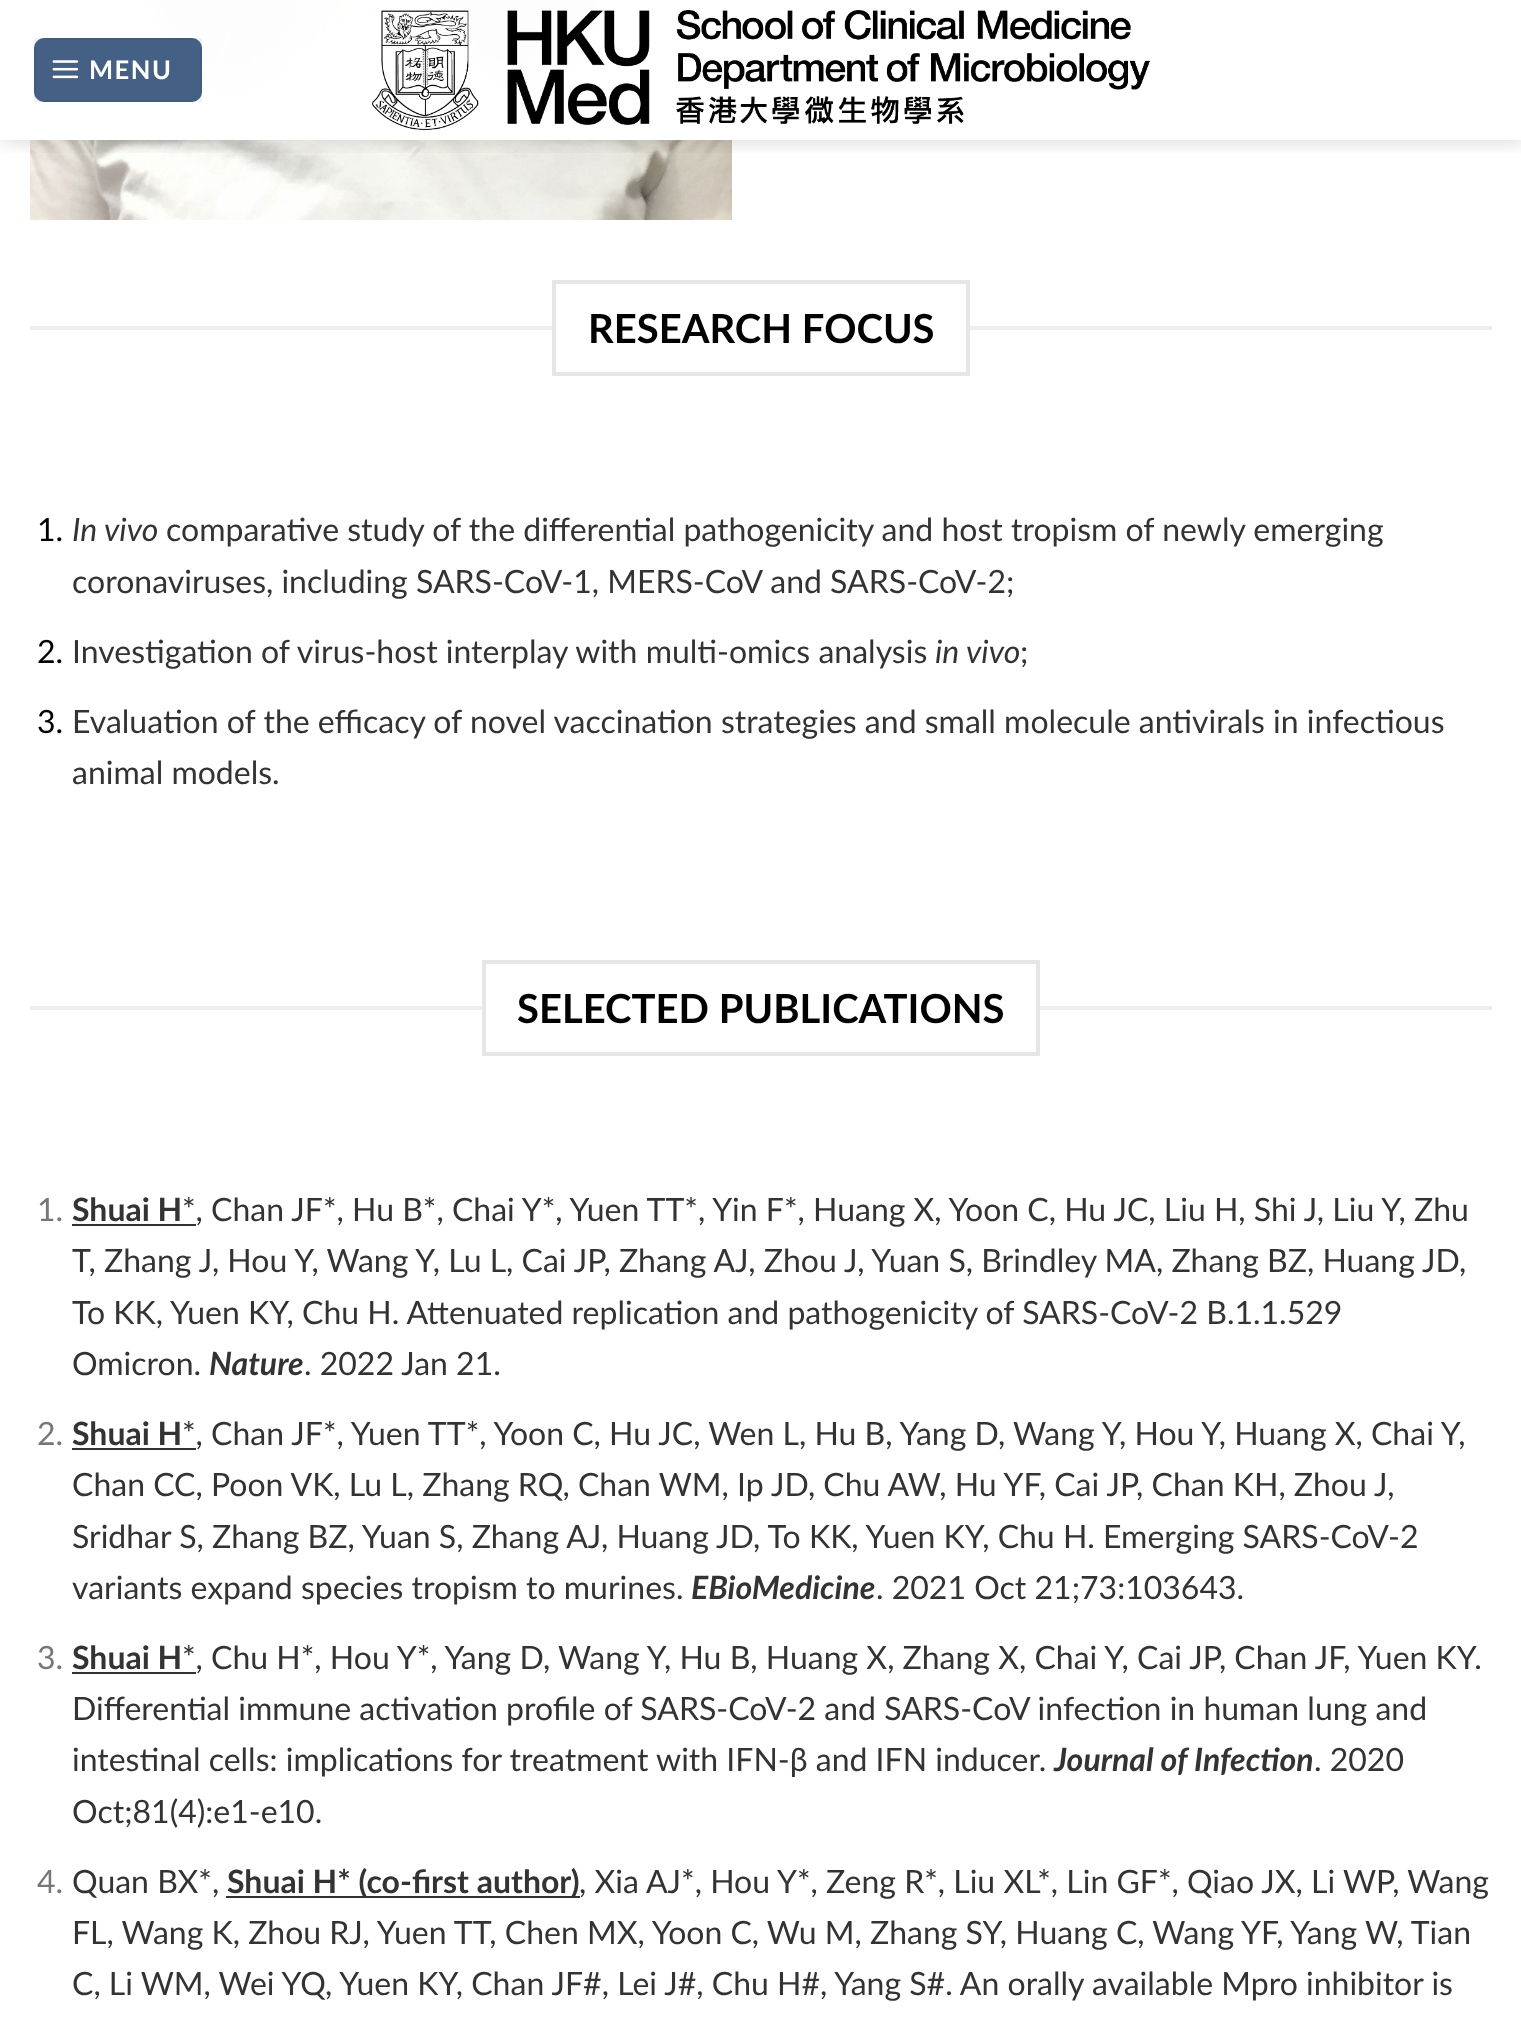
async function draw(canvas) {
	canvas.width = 1521;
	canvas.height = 2023;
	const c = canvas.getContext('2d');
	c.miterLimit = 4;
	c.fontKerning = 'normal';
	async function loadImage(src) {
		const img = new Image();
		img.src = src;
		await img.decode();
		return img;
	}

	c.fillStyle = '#fff';
	c.fillRect(0, 0, 1521, 2023);
	c.drawImage(await loadImage('img3.png'), 30, 0, 702, 220);
	c.save();
	c.beginPath();
	c.rect(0, 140, 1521, 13);
	c.clip();
	c.fillStyle = '#00000026';
	c.filter = 'blur(10px)';
	c.beginPath();
	c.rect(2, 2, 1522, 140);
	c.fill();
	c.filter = 'none';
	c.restore();
	c.fillStyle = '#ffffffe6';
	c.fillRect(30, 0, 702, 140);
	c.fillRect(30, 0, 702, 140);
	c.fillStyle = '#446084';
	c.beginPath();
	c.roundRect(34, 38, 168, 64, 10);
	c.fill();
	c.strokeStyle = '#0000000d';
	c.lineWidth = 2;
	c.strokeRect(35, 39, 166, 62);
	c.drawImage(await loadImage('img1.png'), 52, 60, 27, 19);
	c.letterSpacing = '1.5px';
	c.font = 'bold 25.5px Lato';
	c.fillStyle = '#fff';
	c.fillText('MENU', 89, 79);
	c.drawImage(await loadImage('img2.png'), 372, 10, 778, 121);
	c.fillStyle = '#eee';
	c.fillRect(30, 326, 522, 4);
	c.strokeStyle = '#e6e6e6';
	c.lineWidth = 4;
	c.strokeRect(554, 282, 414, 92);
	c.letterSpacing = '0px';
	c.font = 'bold 40px Lato';
	c.fillStyle = '#000';
	c.fillText('RESEARCH FOCUS', 588, 343);
	c.fillStyle = '#eee';
	c.fillRect(970, 326, 522, 4);
	c.font = '32px Lato';
	c.fillStyle = '#000';
	c.fillText('1.', 37, 541);
	c.font = 'italic 32px Lato';
	c.fillStyle = '#333';
	c.fillText('In vivo', 72, 541);
	c.font = '32px Lato';
	c.fillText('comparative study of the differential pathogenicity and host tropism of newly emerging', 166, 541);
	c.fillText('coronaviruses, including SARS-CoV-1, MERS-CoV and SARS-CoV-2;', 72, 593);
	c.fillStyle = '#000';
	c.fillText('2.', 37, 663);
	c.fillStyle = '#333';
	c.fillText('Investigation of virus-host interplay with multi-omics analysis', 72, 663);
	c.font = 'italic 32px Lato';
	c.fillText('in vivo', 935, 663);
	c.font = '32px Lato';
	c.fillText(';', 1020, 663);
	c.fillStyle = '#000';
	c.fillText('3.', 37, 733);
	c.fillStyle = '#333';
	c.fillText('Evaluation of the efficacy of novel vaccination strategies and small molecule antivirals in infectious', 72, 733);
	c.fillText('animal models.', 72, 784);
	c.fillStyle = '#eee';
	c.fillRect(30, 1006, 452, 4);
	c.strokeRect(484, 962, 554, 92);
	c.font = 'bold 40px Lato';
	c.fillStyle = '#000';
	c.fillText('SELECTED PUBLICATIONS', 517, 1023);
	c.fillStyle = '#eee';
	c.fillRect(1040, 1006, 452, 4);
	c.font = '32px Lato';
	c.fillStyle = '#777';
	c.fillText('1.', 37, 1221);
	c.font = 'bold 32px Lato';
	c.fillStyle = '#333';
	c.fillText('Shuai H', 72, 1221);
	c.fillRect(72, 1224, 124, 2);
	c.font = '32px Lato';
	for (const [text, x, y] of [
		['*, Chan JF*, Hu B*, Chai Y*, Yuen TT*, Yin F*, Huang X, Yoon C, Hu JC, Liu H, Shi J, Liu Y, Zhu', 182, 1221],
		['T, Zhang J, Hou Y, Wang Y, Lu L, Cai JP, Zhang AJ, Zhou J, Yuan S, Brindley MA, Zhang BZ, Huang JD,', 72, 1272],
		['To KK, Yuen KY, Chu H. Attenuated replication and pathogenicity of SARS-CoV-2 B.1.1.529', 72, 1324],
		['Omicron.', 72, 1375],
	]) {
		c.fillText(text, x, y);
	}
	c.font = 'italic bold 32px Lato';
	c.fillText('Nature', 209, 1375);
	c.font = '32px Lato';
	c.fillText('. 2022 Jan 21.', 304, 1375);
	c.fillStyle = '#777';
	c.fillText('2.', 37, 1445);
	c.font = 'bold 32px Lato';
	c.fillStyle = '#333';
	c.fillText('Shuai H', 72, 1445);
	c.fillRect(72, 1448, 124, 2);
	c.font = '32px Lato';
	for (const [text, x, y] of [
		['*, Chan JF*, Yuen TT*, Yoon C, Hu JC, Wen L, Hu B, Yang D, Wang Y, Hou Y, Huang X, Chai Y,', 182, 1445],
		['Chan CC, Poon VK, Lu L, Zhang RQ, Chan WM, Ip JD, Chu AW, Hu YF, Cai JP, Chan KH, Zhou J,', 72, 1496],
		['Sridhar S, Zhang BZ, Yuan S, Zhang AJ, Huang JD, To KK, Yuen KY, Chu H. Emerging SARS-CoV-2', 72, 1548],
		['variants expand species tropism to murines.', 72, 1599],
	]) {
		c.fillText(text, x, y);
	}
	c.font = 'italic bold 32px Lato';
	c.fillText('EBioMedicine', 691, 1599);
	c.font = '32px Lato';
	c.fillText('. 2021 Oct 21;73:103643.', 876, 1599);
	c.fillStyle = '#777';
	c.fillText('3.', 37, 1669);
	c.font = 'bold 32px Lato';
	c.fillStyle = '#333';
	c.fillText('Shuai H', 72, 1669);
	c.fillRect(72, 1672, 124, 2);
	c.font = '32px Lato';
	for (const [text, x, y] of [
		['*, Chu H*, Hou Y*, Yang D, Wang Y, Hu B, Huang X, Zhang X, Chai Y, Cai JP, Chan JF, Yuen KY.', 182, 1669],
		['Differential immune activation profile of SARS-CoV-2 and SARS-CoV infection in human lung and', 72, 1720],
		['intestinal cells: implications for treatment with IFN-β and IFN inducer.', 72, 1771],
	]) {
		c.fillText(text, x, y);
	}
	c.font = 'italic bold 32px Lato';
	c.fillText('Journal of Infection', 1054, 1771);
	c.font = '32px Lato';
	c.fillText('. 2020', 1314, 1771);
	c.fillText('Oct;81(4):e1-e10.', 72, 1823);
	c.fillStyle = '#777';
	c.fillText('4.', 37, 1893);
	c.fillStyle = '#333';
	c.fillText('Quan BX*,', 72, 1893);
	c.fillRect(226, 1896, 354, 2);
	c.font = 'bold 32px Lato';
	c.fillText('Shuai H* (co-first author)', 227, 1893);
	c.font = '32px Lato';
	for (const [text, x, y] of [
		[', Xia AJ*, Hou Y*, Zeng R*, Liu XL*, Lin GF*, Qiao JX, Li WP, Wang', 579, 1893],
		['FL, Wang K, Zhou RJ, Yuen TT, Chen MX, Yoon C, Wu M, Zhang SY, Huang C, Wang YF, Yang W, Tian', 72, 1944],
		['C, Li WM, Wei YQ, Yuen KY, Chan JF#, Lei J#, Chu H#, Yang S#. An orally available Mpro inhibitor is', 72, 1995],
	]) {
		c.fillText(text, x, y);
	}
}

draw(document.querySelector('canvas'));
